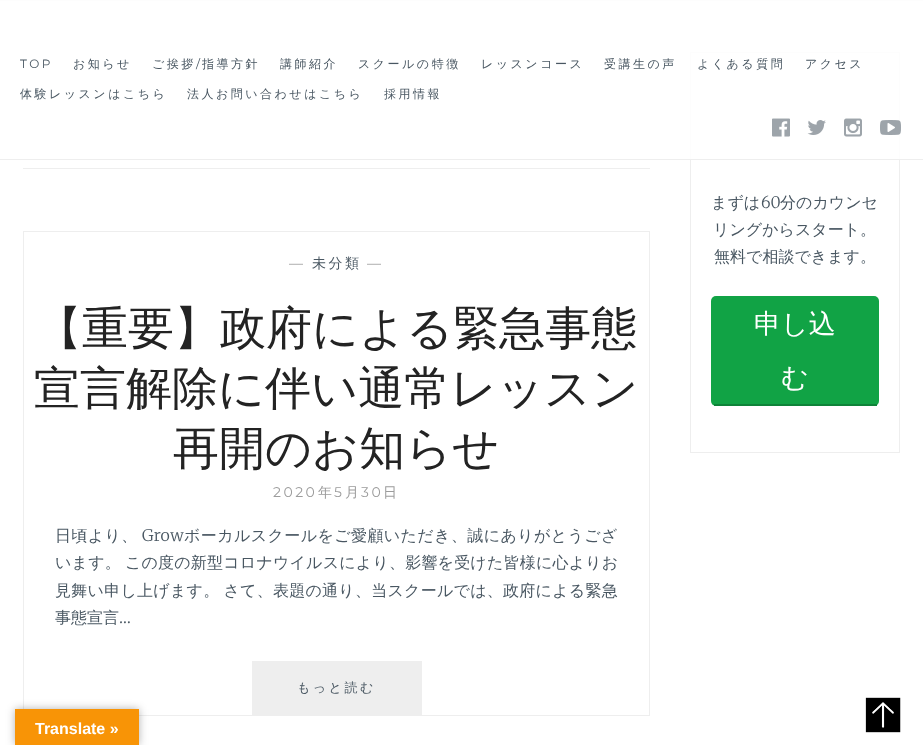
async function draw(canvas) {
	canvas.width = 923;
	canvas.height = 745;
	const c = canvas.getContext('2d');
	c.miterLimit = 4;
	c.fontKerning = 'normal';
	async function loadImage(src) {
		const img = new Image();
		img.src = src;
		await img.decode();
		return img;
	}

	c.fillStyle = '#fff';
	c.fillRect(0, 0, 923, 745);
	c.fillStyle = '#eee';
	c.fillRect(0, 0, 923, 1);
	c.strokeStyle = '#eee';
	c.strokeRect(690.5, 52.5, 209, 400);
	c.fillStyle = '#ffffffd9';
	c.fillRect(0, 0, 923, 159);
	c.fillStyle = '#eee';
	c.fillRect(0, 159, 923, 1);
	c.letterSpacing = '2.5px';
	c.font = '12px Montserrat';
	c.fillStyle = '#495762';
	c.fillText('TOP', 20, 68);
	c.font = '500 12px WenQuanYi Zen Hei';
	c.fillText('お知らせ', 73, 68);
	c.fillText('ご挨拶', 152, 68);
	c.font = '12px Montserrat';
	c.fillText('/', 196, 68);
	c.font = '500 12px WenQuanYi Zen Hei';
	for (const [text, x, y] of [
		['指導方針', 202, 68],
		['講師紹介', 280, 68],
		['スクールの特徴', 358, 68],
		['レッスンコース', 481, 68],
		['受講生の声', 604, 68],
		['よくある質問', 697, 68],
		['アクセス', 805, 68],
		['体験レッスンはこちら', 20, 98],
		['法人お問い合わせはこちら', 187, 98],
		['採用情報', 384, 98],
	]) {
		c.fillText(text, x, y);
	}
	c.drawImage(await loadImage('img1.png'), 772, 118, 18, 19);
	c.drawImage(await loadImage('img2.png'), 807, 120, 19, 15);
	c.drawImage(await loadImage('img3.png'), 844, 118, 18, 19);
	c.drawImage(await loadImage('img4.png'), 880, 120, 21, 15);
	c.fillStyle = '#eee';
	c.fillRect(23, 168, 627, 1);
	c.strokeRect(23.5, 231.5, 626, 484);
	c.font = '14px Montserrat';
	c.fillStyle = '#949494';
	c.fillText('—', 289, 268);
	c.font = '500 14px WenQuanYi Zen Hei';
	c.fillStyle = '#495762';
	c.fillText('未分類', 312, 268);
	c.font = '14px Montserrat';
	c.fillStyle = '#949494';
	c.fillText('—', 367, 268);
	c.letterSpacing = '0px';
	c.font = '500 46px WenQuanYi Zen Hei';
	c.fillStyle = '#232323';
	for (const [text, x, y] of [
		['【重要】政府による緊急事態', 36, 344],
		['宣言解除に伴い通常レッスン', 34, 404],
		['再開のお知らせ', 173, 464],
	]) {
		c.fillText(text, x, y);
	}
	c.letterSpacing = '2.5px';
	c.font = '14px Montserrat';
	c.fillStyle = '#9c9c9c';
	c.fillText('2020', 273, 497);
	c.font = '500 14px WenQuanYi Zen Hei';
	c.fillText('年', 318, 497);
	c.font = '14px Montserrat';
	c.fillText('5', 334, 497);
	c.font = '500 14px WenQuanYi Zen Hei';
	c.fillText('月', 345, 497);
	c.font = '14px Montserrat';
	c.fillText('30', 361, 497);
	c.font = '500 14px WenQuanYi Zen Hei';
	c.fillText('日', 383, 497);
	c.letterSpacing = '0.4px';
	c.font = '500 16px WenQuanYi Zen Hei';
	c.fillStyle = '#495762';
	c.fillText('日頃より、', 55, 541);
	c.font = '300 16px Merriweather';
	c.fillText('Grow', 142, 541);
	c.font = '500 16px WenQuanYi Zen Hei';
	c.fillText('ボーカルスクールをご愛顧いただき、誠にありがとうござ', 184, 541);
	c.letterSpacing = '0.2px';
	c.wordSpacing = '-1px';
	c.fillText('います。 この度の新型コロナウイルスにより、影響を受けた皆様に心よりお', 55, 568);
	c.letterSpacing = '0.25px';
	c.fillText('見舞い申し上げます。 さて、表題の通り、当スクールでは、政府による緊急', 55, 596);
	c.letterSpacing = '0px';
	c.wordSpacing = '0px';
	c.fillText('事態宣言', 55, 623);
	c.font = '300 16px Merriweather';
	c.fillText('…', 119, 623);
	c.fillStyle = '#eee';
	c.fillRect(252, 661, 170, 54);
	c.letterSpacing = '2.5px';
	c.font = '500 13px WenQuanYi Zen Hei';
	c.fillStyle = '#495762';
	c.fillText('もっと読む', 297, 692);
	c.letterSpacing = '0px';
	c.font = '500 16px WenQuanYi Zen Hei';
	c.fillText('まずは', 711, 208);
	c.font = '300 16px Merriweather';
	c.fillText('60', 761, 208);
	c.font = '500 16px WenQuanYi Zen Hei';
	for (const [text, x, y] of [
		['分のカウンセ', 780, 208],
		['リングからスタート。', 713, 235],
		['無料で相談できます。', 714, 262],
	]) {
		c.fillText(text, x, y);
	}
	c.fillStyle = '#11a345';
	c.beginPath();
	c.roundRect(711, 296, 168, 110, 5);
	c.fill();
	c.fillStyle = '#0e8338';
	c.fillRect(714, 404, 163, 2);
	c.font = '500 27px WenQuanYi Zen Hei';
	c.fillStyle = '#fff';
	c.fillText('申し込', 754, 333);
	c.fillText('む', 781, 387);
	c.fillStyle = '#0000004d';
	c.filter = 'blur(4.5px)';
	c.beginPath();
	c.rect(15, 709, 124, 36);
	c.fill();
	c.filter = 'none';
	c.fillStyle = '#f89406';
	c.fillRect(15, 709, 124, 36);
	c.font = 'bold 16px Liberation Sans';
	c.fillStyle = '#fff';
	c.fillText('Translate »', 35, 734);
	c.drawImage(await loadImage('img5.png'), 865, 697, 36, 36);
}

draw(document.querySelector('canvas'));
